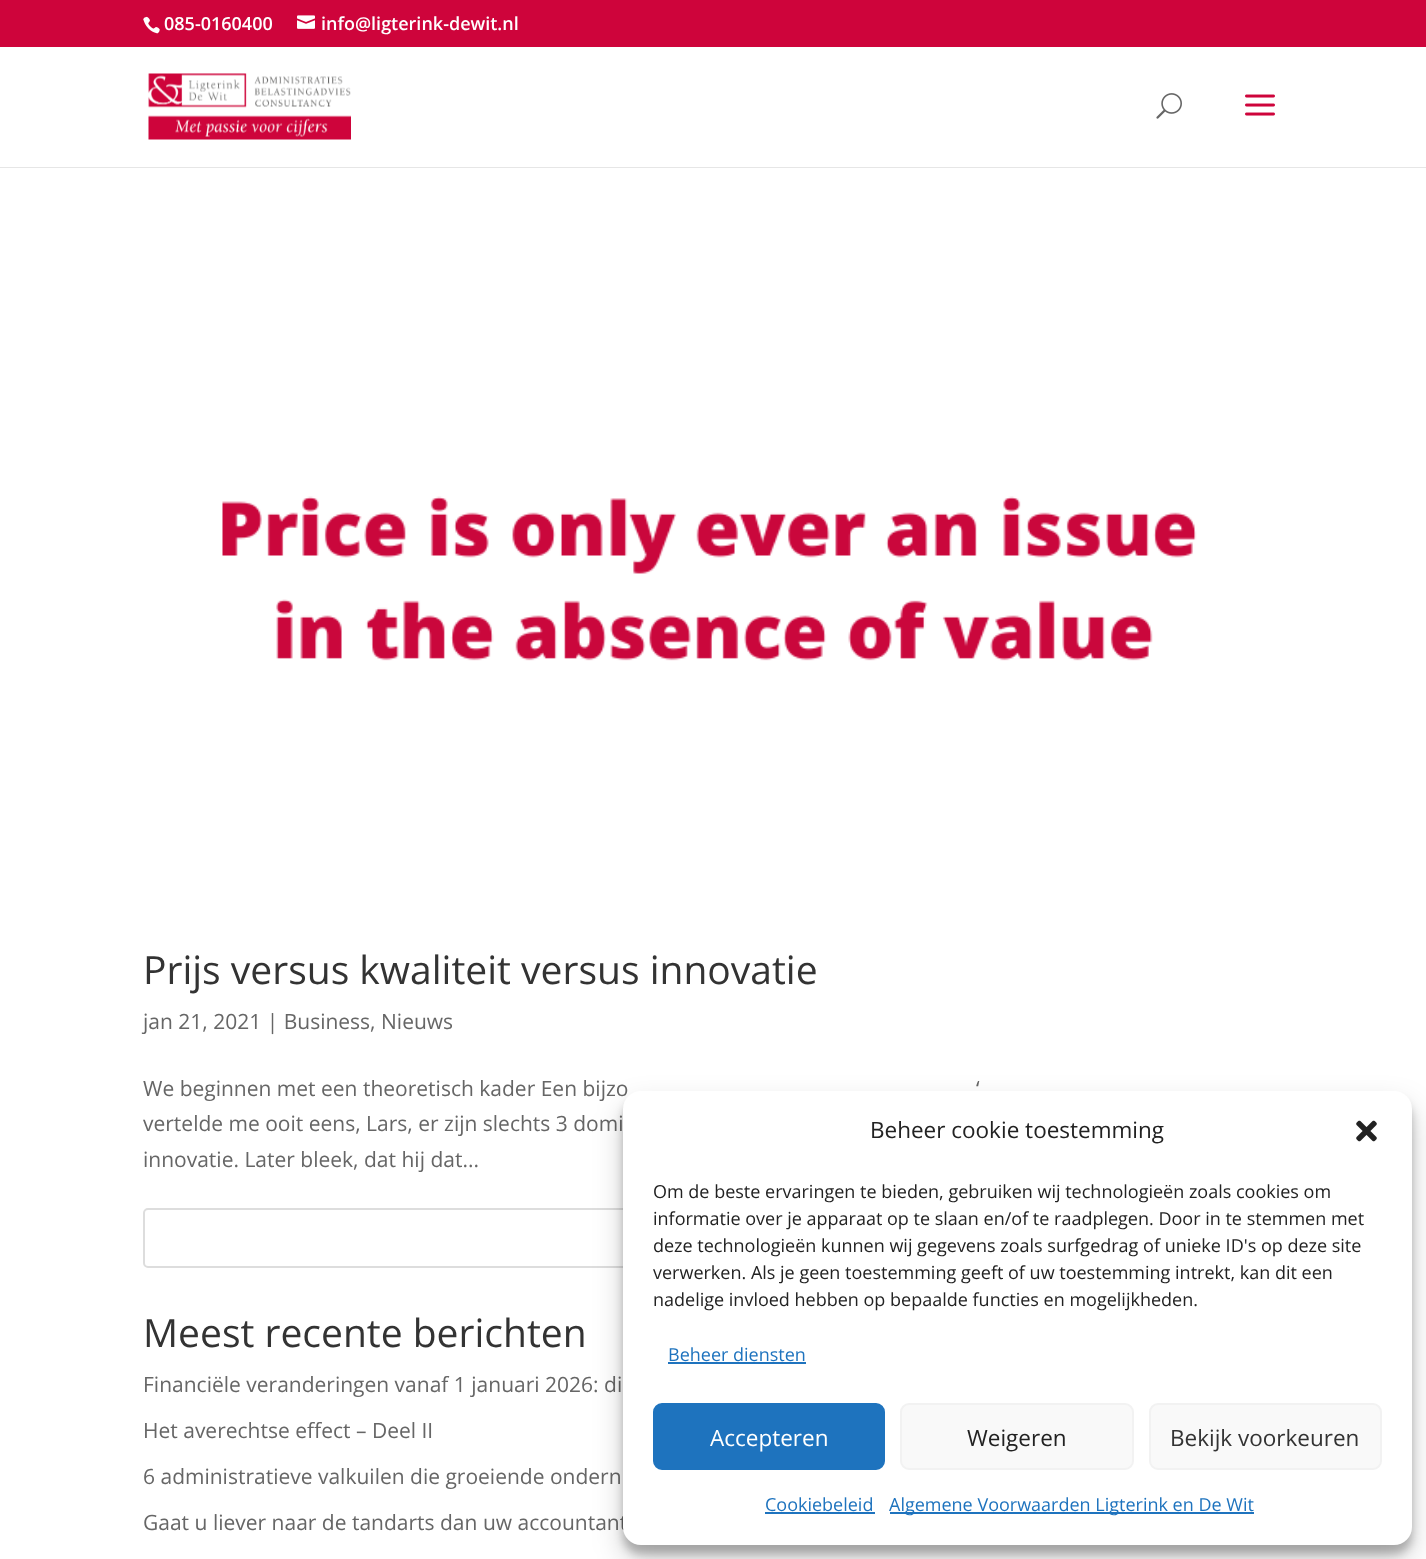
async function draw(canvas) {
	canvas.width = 1426;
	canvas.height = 1559;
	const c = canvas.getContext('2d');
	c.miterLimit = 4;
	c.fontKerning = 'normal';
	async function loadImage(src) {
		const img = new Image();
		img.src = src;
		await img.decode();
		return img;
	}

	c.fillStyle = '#fff';
	c.fillRect(0, 0, 1426, 1559);
	c.fillStyle = '#ce043b';
	c.fillRect(0, 0, 1426, 47);
	c.drawImage(await loadImage('img1.png'), 143, 16, 17, 18);
	c.font = '600 18px Open Sans';
	c.fillStyle = '#fff';
	c.fillText('085-0160400', 164, 30);
	c.drawImage(await loadImage('img2.png'), 297, 15, 18, 14);
	c.fillText('info@ligterink-dewit.nl', 321, 30);
	c.fillStyle = '#e6e6e6';
	c.beginPath();
	c.moveTo(0, 166);
	c.lineTo(0, 168);
	c.lineTo(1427, 168);
	c.lineTo(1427, 48);
	c.lineTo(1426, 48);
	c.lineTo(1426, 166);
	c.closePath();
	c.fill();
	c.fillStyle = '#fff';
	c.fillRect(0, 166, 1426, 1);
	c.drawImage(await loadImage('img3.png'), 148, 73, 203, 67);
	c.drawImage(await loadImage('img4.png'), 1156, 93, 26, 26);
	c.drawImage(await loadImage('img5.png'), 1245, 94, 30, 22);
	c.drawImage(await loadImage('img6.png'), 222, 496, 975, 165);
	c.font = '39px Open Sans';
	c.fillStyle = '#333';
	c.fillText('Prijs versus kwaliteit versus innovatie', 143, 984);
	c.font = '21px Open Sans';
	c.fillStyle = '#666';
	for (const [text, x, y] of [
		['jan 21, 2021 | Business, Nieuws', 143, 1029],
		['We beginnen met een theoretisch kader Een bijzo', 143, 1096],
		['‘', 976, 1096],
		['vertelde me ooit eens, Lars, er zijn slechts 3 domi', 143, 1131],
		['innovatie. Later bleek, dat hij dat...', 143, 1167],
	]) {
		c.fillText(text, x, y);
	}
	c.beginPath();
	c.roundRect(144, 1209, 1139, 58, 4);
	c.strokeStyle = '#ddd';
	c.lineWidth = 2;
	c.stroke();
	c.font = '39px Open Sans';
	c.fillStyle = '#333';
	c.fillText('Meest recente berichten', 143, 1347);
	c.font = '21px Open Sans';
	c.fillStyle = '#666';
	for (const [text, x, y] of [
		['Financiële veranderingen vanaf 1 januari 2026: di', 143, 1392],
		['Het averechtse effect – Deel II', 143, 1438],
		['6 administratieve valkuilen die groeiende ondern', 143, 1484],
		['Gaat u liever naar de tandarts dan uw accountant', 143, 1530],
	]) {
		c.fillText(text, x, y);
	}
	c.fillStyle = '#0000003b';
	c.filter = 'blur(4.5px)';
	c.beginPath();
	c.roundRect(623, 1100, 789, 454, 18);
	c.fill();
	c.filter = 'none';
	c.fillStyle = '#00000030';
	c.filter = 'blur(15px)';
	c.beginPath();
	c.roundRect(623, 1106, 789, 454, 18);
	c.fill();
	c.filter = 'none';
	c.fillStyle = '#fff';
	c.beginPath();
	c.roundRect(623, 1091, 789, 454, 18);
	c.fill();
	c.font = '22.5px Open Sans';
	c.fillStyle = '#222';
	c.fillText('Beheer cookie toestemming', 870, 1138);
	c.drawImage(await loadImage('img7.png'), 1356, 1120, 21, 22);
	c.font = '18px Open Sans';
	for (const [text, x, y] of [
		['Om de beste ervaringen te bieden, gebruiken wij technologieën zoals cookies om', 653, 1198],
		['informatie over je apparaat op te slaan en/of te raadplegen. Door in te stemmen met', 653, 1225],
		['deze technologieën kunnen wij gegevens zoals surfgedrag of unieke ID\'s op deze site', 653, 1252],
		['verwerken. Als je geen toestemming geeft of uw toestemming intrekt, kan dit een', 653, 1279],
		['nadelige invloed hebben op bepaalde functies en mogelijkheden.', 653, 1306],
	]) {
		c.fillText(text, x, y);
	}
	c.fillStyle = '#1e73be';
	c.fillText('Beheer diensten', 668, 1361);
	c.fillRect(668, 1362, 138, 2);
	c.beginPath();
	c.roundRect(654, 1404, 230, 65, 8);
	c.fill();
	c.strokeStyle = '#1e73be';
	c.stroke();
	c.font = '22.5px Open Sans';
	c.fillStyle = '#fff';
	c.fillText('Accepteren', 710, 1446);
	c.fillStyle = '#f9f9f9';
	c.beginPath();
	c.roundRect(901, 1404, 232, 65, 8);
	c.fill();
	c.strokeStyle = '#f2f2f2';
	c.stroke();
	c.fillStyle = '#222';
	c.fillText('Weigeren', 967, 1446);
	c.fillStyle = '#f9f9f9';
	c.beginPath();
	c.roundRect(1150, 1404, 231, 65, 8);
	c.fill();
	c.stroke();
	c.fillStyle = '#333';
	c.fillText('Bekijk voorkeuren', 1170, 1446);
	c.font = '18px Open Sans';
	c.fillStyle = '#1e73be';
	c.fillText('Cookiebeleid', 765, 1511);
	c.fillRect(765, 1512, 110, 2);
	c.fillRect(890, 1512, 364, 2);
	c.fillText('Algemene Voorwaarden Ligterink en De Wit', 889, 1511);
}

draw(document.querySelector('canvas'));
